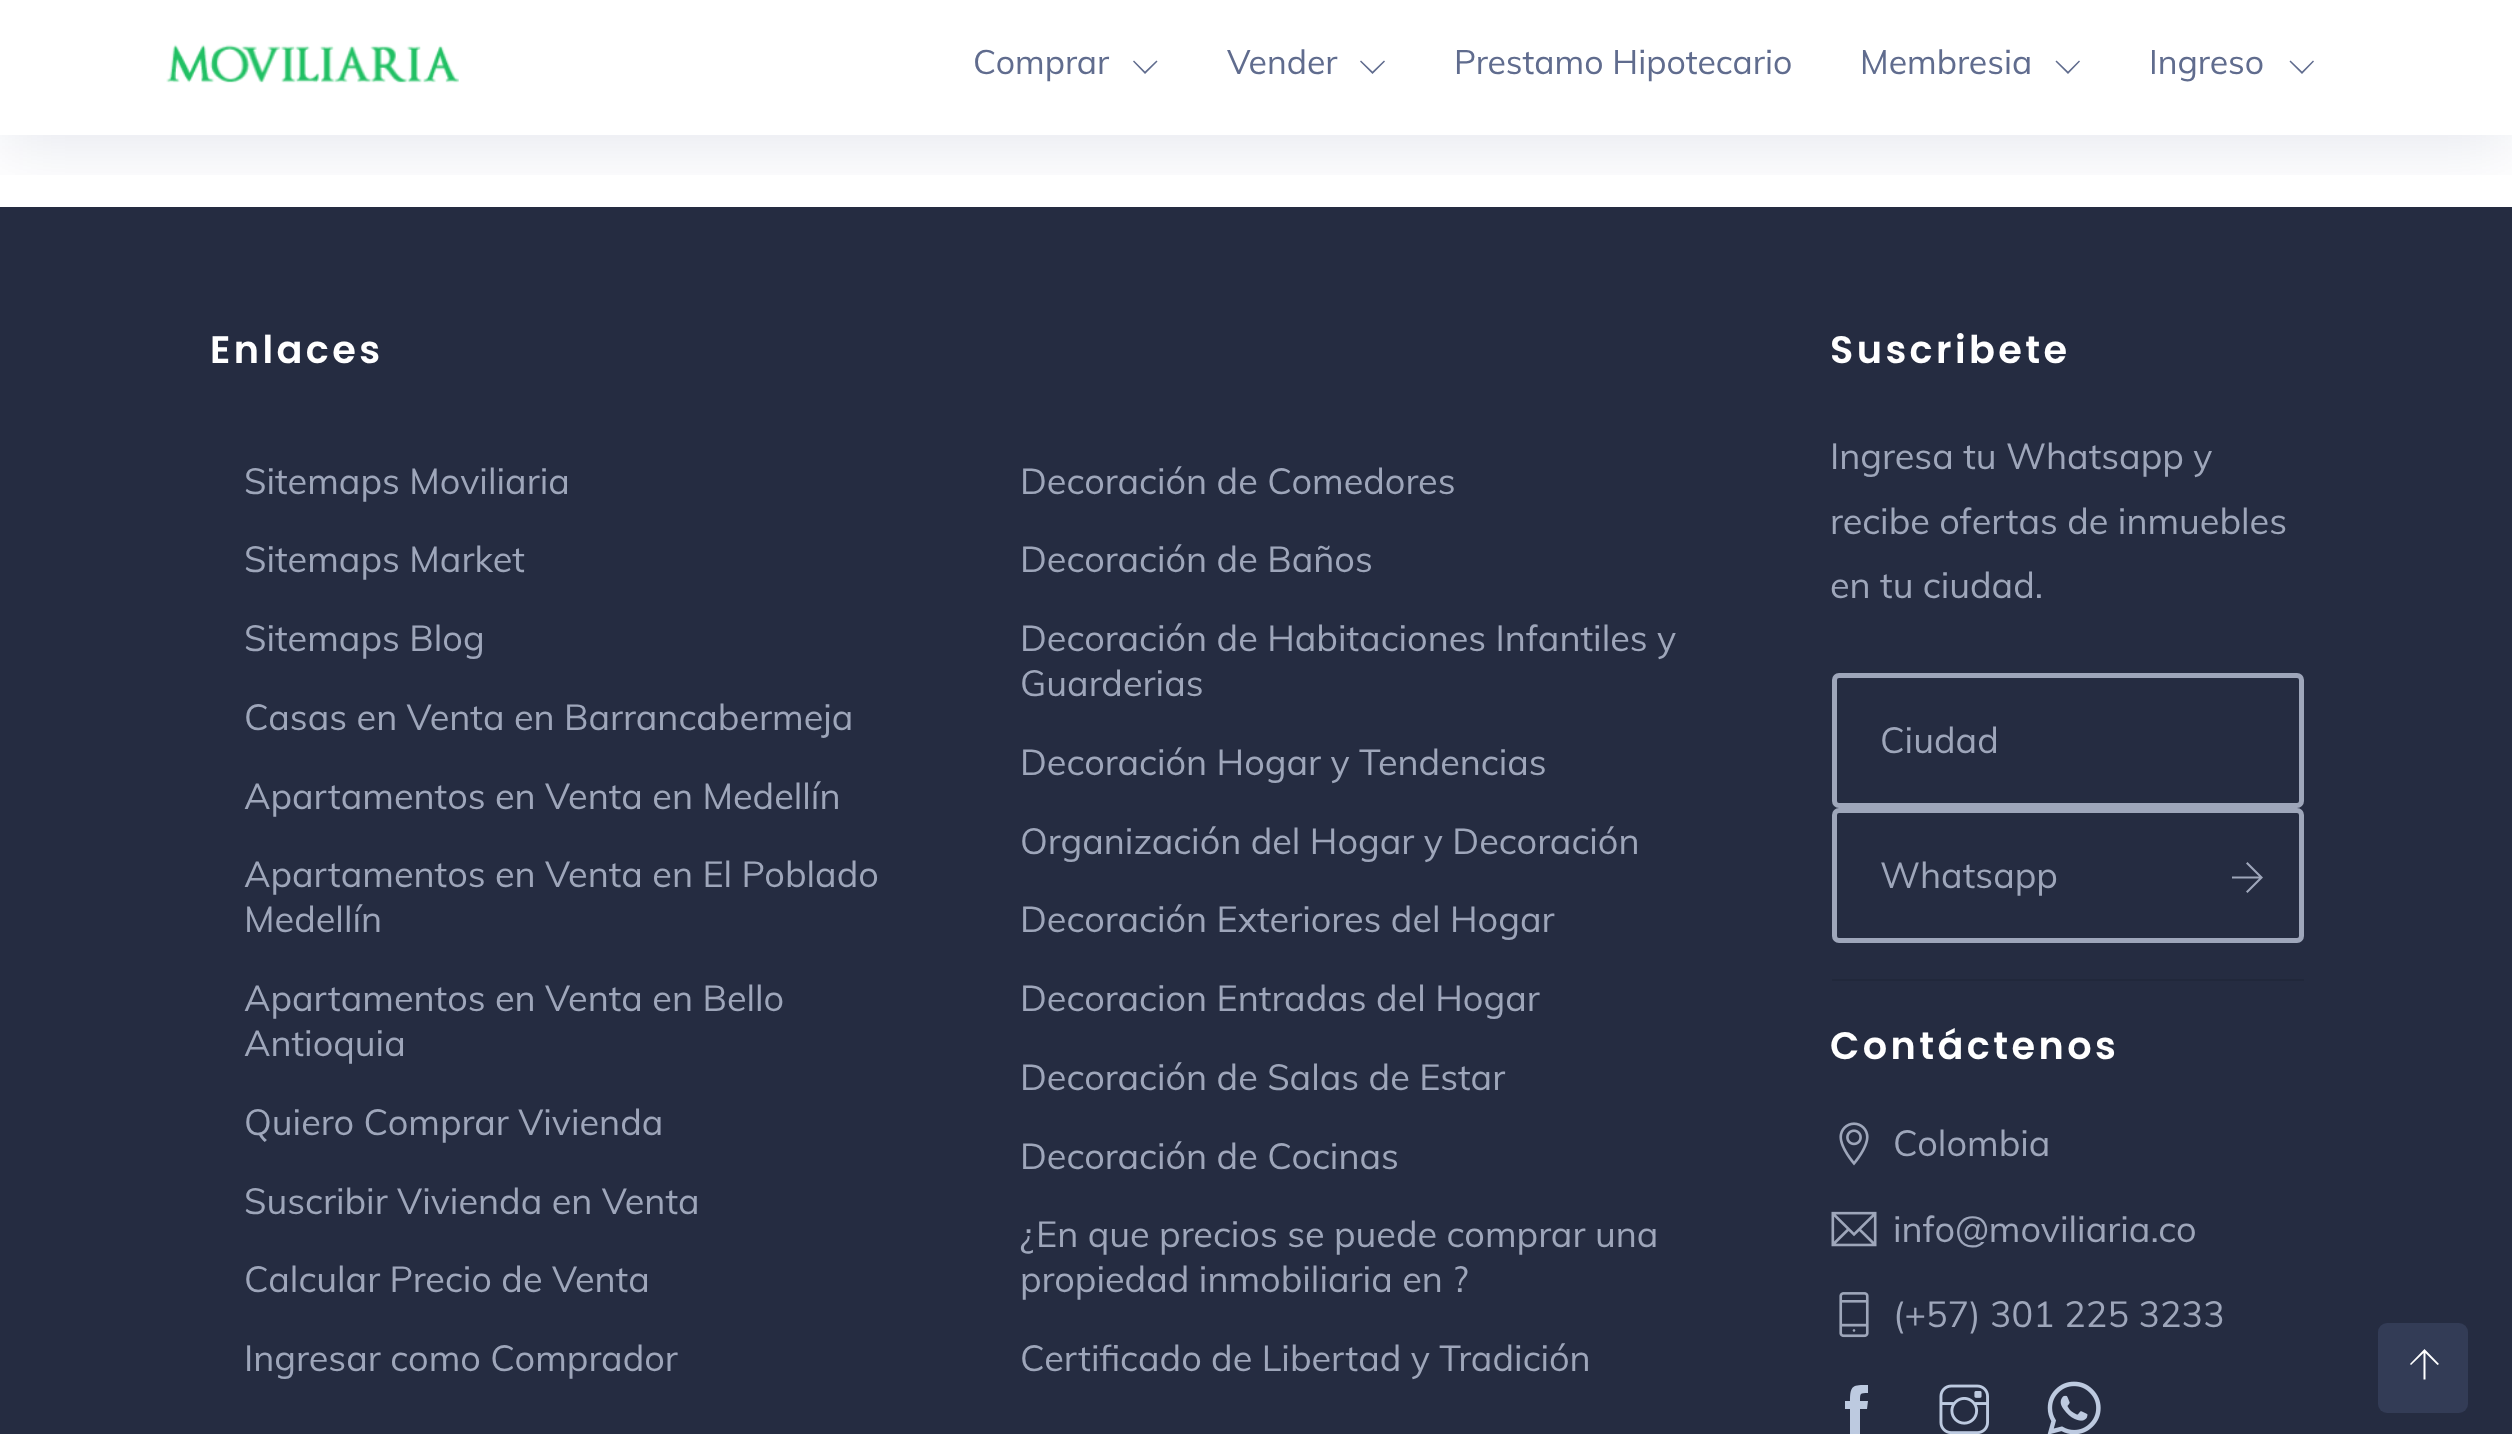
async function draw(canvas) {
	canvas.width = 2512;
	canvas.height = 1434;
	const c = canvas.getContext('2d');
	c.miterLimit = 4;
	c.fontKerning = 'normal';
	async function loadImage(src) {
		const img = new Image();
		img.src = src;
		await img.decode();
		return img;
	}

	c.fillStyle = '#fff';
	c.fillRect(0, 0, 2512, 1434);
	c.fillStyle = '#252c41';
	c.fillRect(0, 207, 2512, 1227);
	c.save();
	c.beginPath();
	c.rect(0, 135, 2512, 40);
	c.clip();
	c.fillStyle = '#0016541a';
	c.filter = 'blur(34px)';
	c.beginPath();
	c.rect(0, 11, 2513, 135);
	c.fill();
	c.filter = 'none';
	c.restore();
	c.drawImage(await loadImage('img1.png'), 166, 44, 293, 39);
	c.font = '33.75px Muli';
	c.fillStyle = '#606c8e';
	c.fillText('Comprar', 973, 74);
	c.beginPath();
	c.moveTo(1157.5, 61.5);
	c.lineTo(1145, 74);
	c.lineTo(1133, 61.5);
	c.lineTo(1134, 60.5);
	c.lineTo(1145, 71.5);
	c.lineTo(1156.5, 60.5);
	c.closePath();
	c.fill();
	c.fillText('Vender', 1227, 74);
	c.beginPath();
	c.moveTo(1385, 61.5);
	c.lineTo(1372.5, 74);
	c.lineTo(1360, 61.5);
	c.lineTo(1361, 60.5);
	c.lineTo(1372.5, 71.5);
	c.lineTo(1384, 60.5);
	c.closePath();
	c.fill();
	c.fillText('Prestamo Hipotecario', 1454, 74);
	c.fillText('Membresia', 1860, 74);
	c.beginPath();
	c.moveTo(2080, 61.5);
	c.lineTo(2068, 74);
	c.lineTo(2055.5, 61.5);
	c.lineTo(2056.5, 60.5);
	c.lineTo(2068, 71.5);
	c.lineTo(2079, 60.5);
	c.closePath();
	c.fill();
	c.fillText('Ingreso', 2149, 74);
	c.beginPath();
	c.moveTo(2314, 61.5);
	c.lineTo(2302, 74);
	c.lineTo(2289.5, 61.5);
	c.lineTo(2290.5, 60.5);
	c.lineTo(2302, 71.5);
	c.lineTo(2313, 60.5);
	c.closePath();
	c.fill();
	c.letterSpacing = '3.4px';
	c.font = '600 38.25px Poppins';
	c.fillStyle = '#fff';
	c.fillText('Enlaces', 210, 363);
	c.letterSpacing = '0px';
	c.font = '36px Muli';
	c.fillStyle = '#9ea6ba';
	for (const [text, x, y] of [
		['Sitemaps Moviliaria', 244, 494],
		['Sitemaps Market', 244, 572],
		['Sitemaps Blog', 244, 651],
		['Casas en Venta en Barrancabermeja', 244, 730],
		['Apartamentos en Venta en Medellín', 244, 809],
		['Apartamentos en Venta en El Poblado', 244, 887],
		['Medellín', 244, 932],
		['Apartamentos en Venta en Bello', 244, 1011],
		['Antioquia', 244, 1056],
		['Quiero Comprar Vivienda', 244, 1135],
		['Suscribir Vivienda en Venta', 244, 1214],
		['Calcular Precio de Venta', 244, 1292],
		['Ingresar como Comprador', 244, 1371],
		['Decoración de Comedores', 1020, 494],
		['Decoración de Baños', 1020, 572],
		['Decoración de Habitaciones Infantiles y', 1020, 651],
		['Guarderias', 1020, 696],
		['Decoración Hogar y Tendencias', 1020, 775],
		['Organización del Hogar y Decoración', 1020, 854],
		['Decoración Exteriores del Hogar', 1020, 932],
		['Decoracion Entradas del Hogar', 1020, 1011],
		['Decoración de Salas de Estar', 1020, 1090],
		['Decoración de Cocinas', 1020, 1169],
		['¿En que precios se puede comprar una', 1020, 1247],
		['propiedad inmobiliaria en ?', 1020, 1292],
		['Certificado de Libertad y Tradición', 1020, 1371],
	]) {
		c.fillText(text, x, y);
	}
	c.letterSpacing = '3.4px';
	c.font = '600 38.25px Poppins';
	c.fillStyle = '#fff';
	c.fillText('Suscribete', 1830, 363);
	c.letterSpacing = '0px';
	c.font = '36px Muli';
	c.fillStyle = '#9ea6ba';
	for (const [text, x, y] of [
		['Ingresa tu Whatsapp y', 1830, 469],
		['recibe ofertas de inmuebles', 1830, 534],
		['en tu ciudad.', 1830, 598],
	]) {
		c.fillText(text, x, y);
	}
	c.beginPath();
	c.roundRect(1834.5, 675.5, 467, 130, 4.5);
	c.strokeStyle = '#9ea6ba';
	c.lineWidth = 5;
	c.stroke();
	c.fillText('Ciudad', 1880, 753);
	c.beginPath();
	c.roundRect(1834.5, 810.5, 467, 130, 4.5);
	c.stroke();
	c.fillText('Whatsapp', 1880, 888);
	c.beginPath();
	c.moveTo(2263, 877.5);
	c.lineTo(2247.5, 893);
	c.lineTo(2246, 891.5);
	c.lineTo(2259, 878.5);
	c.lineTo(2232, 878.5);
	c.lineTo(2232, 876.5);
	c.lineTo(2259, 876.5);
	c.lineTo(2246, 863.5);
	c.lineTo(2247.5, 862);
	c.closePath();
	c.fill();
	c.fillStyle = '#21283b';
	c.fillRect(1832, 979, 472, 2);
	c.letterSpacing = '3.4px';
	c.font = '600 38.25px Poppins';
	c.fillStyle = '#fff';
	c.fillText('Contáctenos', 1830, 1059);
	c.drawImage(await loadImage('img2.png'), 1839, 1122, 30, 44);
	c.letterSpacing = '0px';
	c.font = '36px Muli';
	c.fillStyle = '#9ea6ba';
	c.fillText('Colombia', 1893, 1156);
	c.drawImage(await loadImage('img3.png'), 1831, 1211, 46, 36);
	c.fillText('info@moviliaria.co', 1893, 1242);
	c.drawImage(await loadImage('img4.png'), 1839, 1292, 30, 46);
	c.fillText('(+57) 301 225 3233', 1893, 1327);
	c.fillStyle = '#bdcae0';
	c.beginPath();
	c.moveTo(1868, 1401);
	c.lineTo(1867, 1409);
	c.lineTo(1860, 1409);
	c.lineTo(1860, 1434);
	c.lineTo(1850, 1434);
	c.lineTo(1850, 1409);
	c.lineTo(1845, 1409);
	c.lineTo(1845, 1401);
	c.lineTo(1850, 1401);
	c.bezierCurveTo(1850, 1385, 1853, 1385, 1868, 1385);
	c.lineTo(1868, 1393);
	c.bezierCurveTo(1860, 1393, 1860, 1393, 1860, 1401);
	c.closePath();
	c.fill();
	c.drawImage(await loadImage('img5.png'), 1939, 1384, 50, 50);
	c.drawImage(await loadImage('img6.png'), 2047, 1381, 54, 53);
	c.fillStyle = '#333c56';
	c.beginPath();
	c.roundRect(2378, 1323, 90, 90, 9);
	c.fill();
	c.fillStyle = '#fff';
	c.beginPath();
	c.moveTo(2437.5, 1365);
	c.lineTo(2425.5, 1353);
	c.lineTo(2425.5, 1379.5);
	c.lineTo(2423.5, 1379.5);
	c.lineTo(2423.5, 1353);
	c.lineTo(2411, 1365);
	c.lineTo(2410, 1364);
	c.lineTo(2424.5, 1349);
	c.lineTo(2439, 1364);
	c.closePath();
	c.fill();
}

draw(document.querySelector('canvas'));
